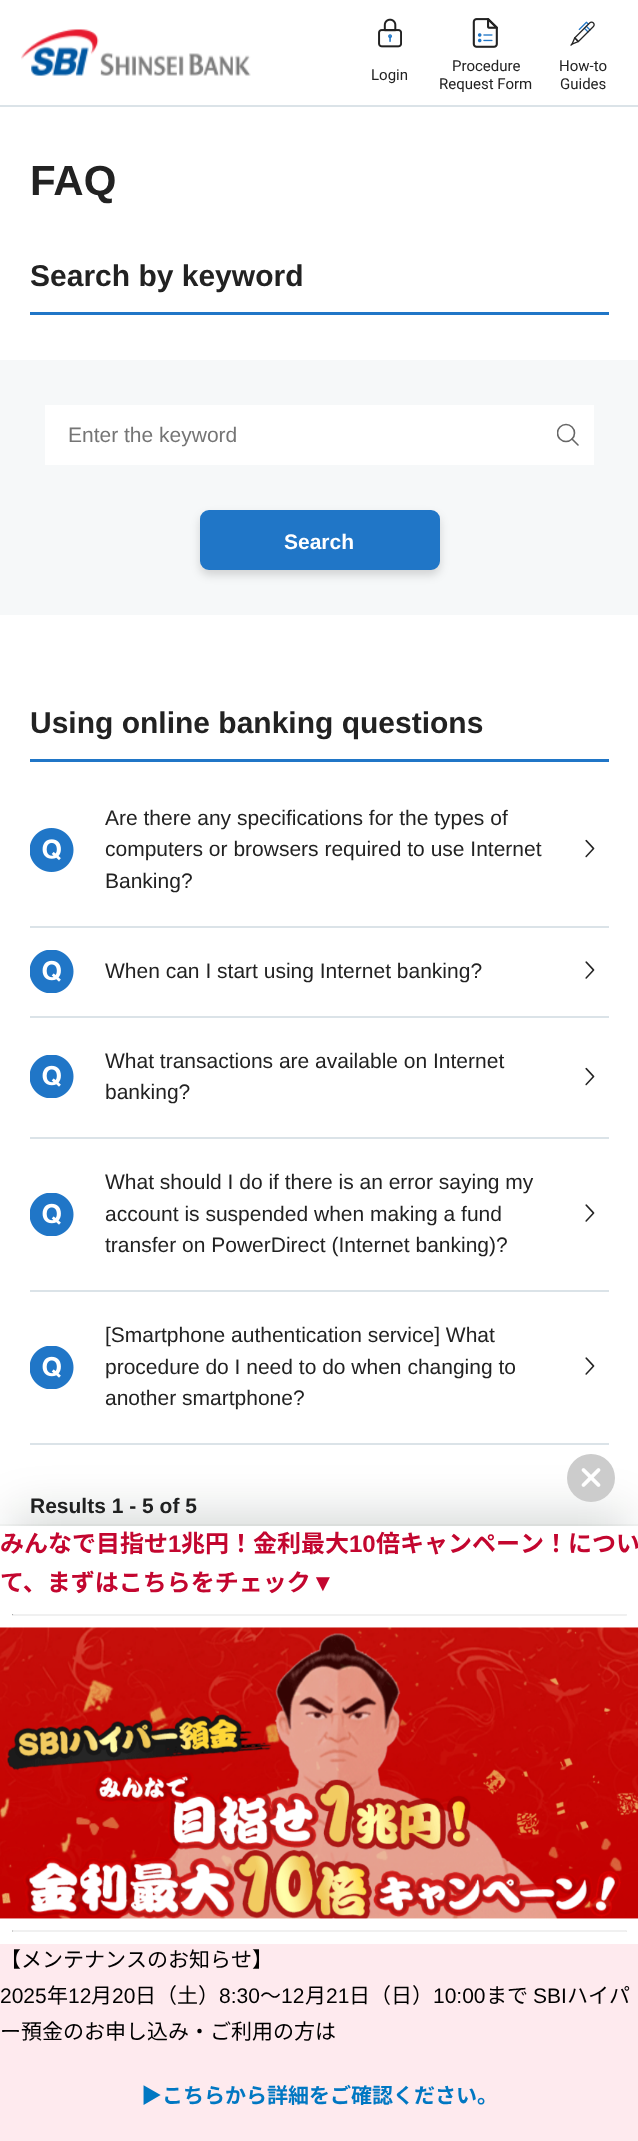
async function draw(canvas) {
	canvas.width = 638;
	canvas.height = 2141;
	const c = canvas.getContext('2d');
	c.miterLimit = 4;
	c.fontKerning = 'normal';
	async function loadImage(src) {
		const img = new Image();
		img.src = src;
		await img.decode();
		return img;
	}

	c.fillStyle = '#fff';
	c.fillRect(0, 0, 638, 2141);
	c.fillStyle = '#dbe3e8';
	c.fillRect(0, 105, 638, 2);
	c.drawImage(await loadImage('img1.png'), 21, 29, 230, 47);
	c.drawImage(await loadImage('img2.png'), 378, 18, 24, 30);
	c.font = '15px Roboto';
	c.fillStyle = '#222';
	c.fillText('Login', 371, 80);
	c.drawImage(await loadImage('img3.png'), 472, 18, 26, 30);
	c.fillText('Procedure', 452, 71);
	c.fillText('Request Form', 439, 89);
	c.drawImage(await loadImage('img4.png'), 570, 21, 25, 25);
	c.fillText('How-to', 559, 71);
	c.fillText('Guides', 560, 89);
	c.font = 'bold 42px Liberation Sans';
	c.fillText('FAQ', 30, 195);
	c.fillStyle = '#2076c7';
	c.fillRect(30, 312, 579, 3);
	c.font = 'bold 30px Liberation Sans';
	c.fillStyle = '#222';
	c.fillText('Search by keyword', 30, 286);
	c.fillStyle = '#f6f8f9';
	c.fillRect(0, 360, 638, 255);
	c.fillStyle = '#fff';
	c.fillRect(45, 405, 549, 60);
	c.font = '21px Liberation Sans';
	c.fillStyle = '#757575';
	c.fillText('Enter the keyword', 68, 442);
	c.save();
	c.beginPath();
	c.rect(557, 423, 22, 23);
	c.clip();
	c.beginPath();
	c.arc(566, 433, 8.5, 0, 2 * Math.PI);
	c.strokeStyle = '#666';
	c.lineWidth = 1.6;
	c.stroke();
	c.restore();
	c.beginPath();
	c.moveTo(572, 439);
	c.lineTo(578, 445);
	c.strokeStyle = '#666';
	c.lineWidth = 1.6;
	c.lineCap = 'round';
	c.lineJoin = 'round';
	c.stroke();
	c.fillStyle = '#00000026';
	c.filter = 'blur(5px)';
	c.beginPath();
	c.roundRect(200, 515, 240, 60, 9);
	c.fill();
	c.filter = 'none';
	c.fillStyle = '#2076c7';
	c.beginPath();
	c.roundRect(201.5, 511.5, 237, 57, 7.5);
	c.fill();
	c.strokeStyle = '#2076c7';
	c.lineWidth = 3;
	c.lineJoin = 'miter';
	c.stroke();
	c.font = 'bold 21px Liberation Sans';
	c.fillStyle = '#fff';
	c.fillText('Search', 284, 549);
	c.fillStyle = '#2076c7';
	c.fillRect(30, 759, 579, 3);
	c.font = 'bold 30px Liberation Sans';
	c.fillStyle = '#222';
	c.fillText('Using online banking questions', 30, 733);
	c.fillStyle = '#dbe3e8';
	c.fillRect(30, 926, 579, 2);
	c.drawImage(await loadImage('img5.png'), 30, 828, 44, 44);
	c.font = '21px Liberation Sans';
	c.fillStyle = '#222';
	c.fillText('Are there any specifications for the types of', 105, 825);
	c.fillText('computers or browsers required to use Internet', 105, 856);
	c.drawImage(await loadImage('img6.png'), 585, 839, 10, 19);
	c.fillText('Banking?', 105, 888);
	c.fillStyle = '#dbe3e8';
	c.fillRect(30, 1016, 579, 2);
	c.drawImage(await loadImage('img7.png'), 30, 950, 44, 43);
	c.fillStyle = '#222';
	c.fillText('When can I start using Internet banking?', 105, 978);
	c.drawImage(await loadImage('img8.png'), 585, 961, 10, 18);
	c.fillStyle = '#dbe3e8';
	c.fillRect(30, 1137, 579, 2);
	c.drawImage(await loadImage('img7.png'), 30, 1055, 44, 43);
	c.fillStyle = '#222';
	c.fillText('What transactions are available on Internet', 105, 1068);
	c.drawImage(await loadImage('img6.png'), 585, 1067, 10, 19);
	c.fillText('banking?', 105, 1099);
	c.fillStyle = '#dbe3e8';
	c.fillRect(30, 1290, 579, 2);
	c.drawImage(await loadImage('img7.png'), 30, 1193, 44, 43);
	c.fillStyle = '#222';
	c.fillText('What should I do if there is an error saying my', 105, 1189);
	c.fillText('account is suspended when making a fund', 105, 1221);
	c.drawImage(await loadImage('img8.png'), 585, 1204, 10, 18);
	c.fillText('transfer on PowerDirect (Internet banking)?', 105, 1252);
	c.fillStyle = '#dbe3e8';
	c.fillRect(30, 1443, 579, 2);
	c.drawImage(await loadImage('img7.png'), 30, 1346, 44, 43);
	c.fillStyle = '#222';
	c.fillText('[Smartphone authentication service] What', 105, 1342);
	c.fillText('procedure do I need to do when changing to', 105, 1374);
	c.drawImage(await loadImage('img8.png'), 585, 1357, 10, 18);
	c.fillText('another smartphone?', 105, 1405);
	c.font = 'bold 21px Liberation Sans';
	c.fillText('Results 1 - 5 of 5', 30, 1513);
	c.fillStyle = '#00100e29';
	c.filter = 'blur(24px)';
	c.beginPath();
	c.rect(12, 1514, 615, 592);
	c.fill();
	c.filter = 'none';
	c.fillStyle = '#ccc';
	c.beginPath();
	c.arc(591, 1478, 24, 0, 2 * Math.PI);
	c.fill();
	c.drawImage(await loadImage('img9.png'), 581, 1468, 20, 19);
	c.strokeStyle = '#00100e08';
	c.lineWidth = 2;
	c.strokeRect(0, 1525, 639, 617);
	c.fillStyle = '#fff';
	c.fillRect(0, 1526, 638, 418);
	c.font = 'bold 24px Noto Sans JP';
	c.fillStyle = '#c3062f';
	c.fillText('みんなで目指せ', 0, 1552);
	c.font = 'bold 24px Liberation Sans';
	c.fillText('1', 168, 1552);
	c.font = 'bold 24px Noto Sans JP';
	c.fillText('兆円！金利最大', 181, 1552);
	c.font = 'bold 24px Liberation Sans';
	c.fillText('10', 349, 1552);
	c.font = 'bold 24px Noto Sans JP';
	c.fillText('倍キャンペーン！につい', 376, 1552);
	c.fillText('て、まずはこちらをチェック', 0, 1591);
	c.font = 'bold 24px Liberation Sans';
	c.fillText('▼', 311, 1591);
	c.fillStyle = '#eee';
	c.beginPath();
	c.moveTo(627, 1614);
	c.lineTo(627, 1615.5);
	c.lineTo(625.5, 1614);
	c.closePath();
	c.fill();
	c.fillStyle = '#f0f0f0';
	c.beginPath();
	c.moveTo(627, 1616);
	c.lineTo(12, 1616);
	c.lineTo(14, 1614);
	c.lineTo(626, 1614);
	c.closePath();
	c.fill();
	c.fillStyle = '#9f9f9f';
	c.beginPath();
	c.moveTo(12, 1615.5);
	c.lineTo(12, 1614);
	c.lineTo(13.5, 1614);
	c.closePath();
	c.fill();
	c.drawImage(await loadImage('img10.png'), 0, 1627, 638, 292);
	c.fillStyle = '#eee';
	c.beginPath();
	c.moveTo(627, 1930.5);
	c.lineTo(627, 1932);
	c.lineTo(625.5, 1930.5);
	c.closePath();
	c.fill();
	c.fillStyle = '#0000000f';
	c.beginPath();
	c.moveTo(627, 1932);
	c.lineTo(12, 1932);
	c.lineTo(14, 1930);
	c.lineTo(626, 1930);
	c.closePath();
	c.fill();
	c.fillStyle = '#9f9f9f';
	c.beginPath();
	c.moveTo(12, 1932);
	c.lineTo(12, 1930.5);
	c.lineTo(13.5, 1930.5);
	c.closePath();
	c.fill();
	c.fillStyle = '#feeaee';
	c.fillRect(0, 1944, 638, 197);
	c.font = '21px Noto Sans JP';
	c.fillStyle = '#000';
	c.fillText('【メンテナンスのお知らせ】', 0, 1967);
	c.font = '21px Liberation Sans';
	c.fillText('2025', 0, 2003);
	c.font = '21px Noto Sans JP';
	c.fillText('年', 47, 2003);
	c.font = '21px Liberation Sans';
	c.fillText('12', 68, 2003);
	c.font = '21px Noto Sans JP';
	c.fillText('月', 91, 2003);
	c.font = '21px Liberation Sans';
	c.fillText('20', 112, 2003);
	c.font = '21px Noto Sans JP';
	c.fillText('日（土）', 135, 2003);
	c.font = '21px Liberation Sans';
	c.fillText('8:30', 219, 2003);
	c.font = '21px Noto Sans JP';
	c.fillText('～', 260, 2003);
	c.font = '21px Liberation Sans';
	c.fillText('12', 281, 2003);
	c.font = '21px Noto Sans JP';
	c.fillText('月', 305, 2003);
	c.font = '21px Liberation Sans';
	c.fillText('21', 326, 2003);
	c.font = '21px Noto Sans JP';
	c.fillText('日（日）', 349, 2003);
	c.font = '21px Liberation Sans';
	c.fillText('10:00', 433, 2003);
	c.font = '21px Noto Sans JP';
	c.fillText('まで', 486, 2003);
	c.font = '21px Liberation Sans';
	c.fillText('SBI', 533, 2003);
	c.font = '21px Noto Sans JP';
	c.fillText('ハイパ', 567, 2003);
	c.fillText('ー預金のお申し込み・ご利用の方は', 0, 2039);
	c.font = 'bold 21px Noto Sans JP';
	c.fillStyle = '#0077c2';
	c.fillText('▶こちらから詳細をご確認ください。', 141, 2103);
}

draw(document.querySelector('canvas'));
